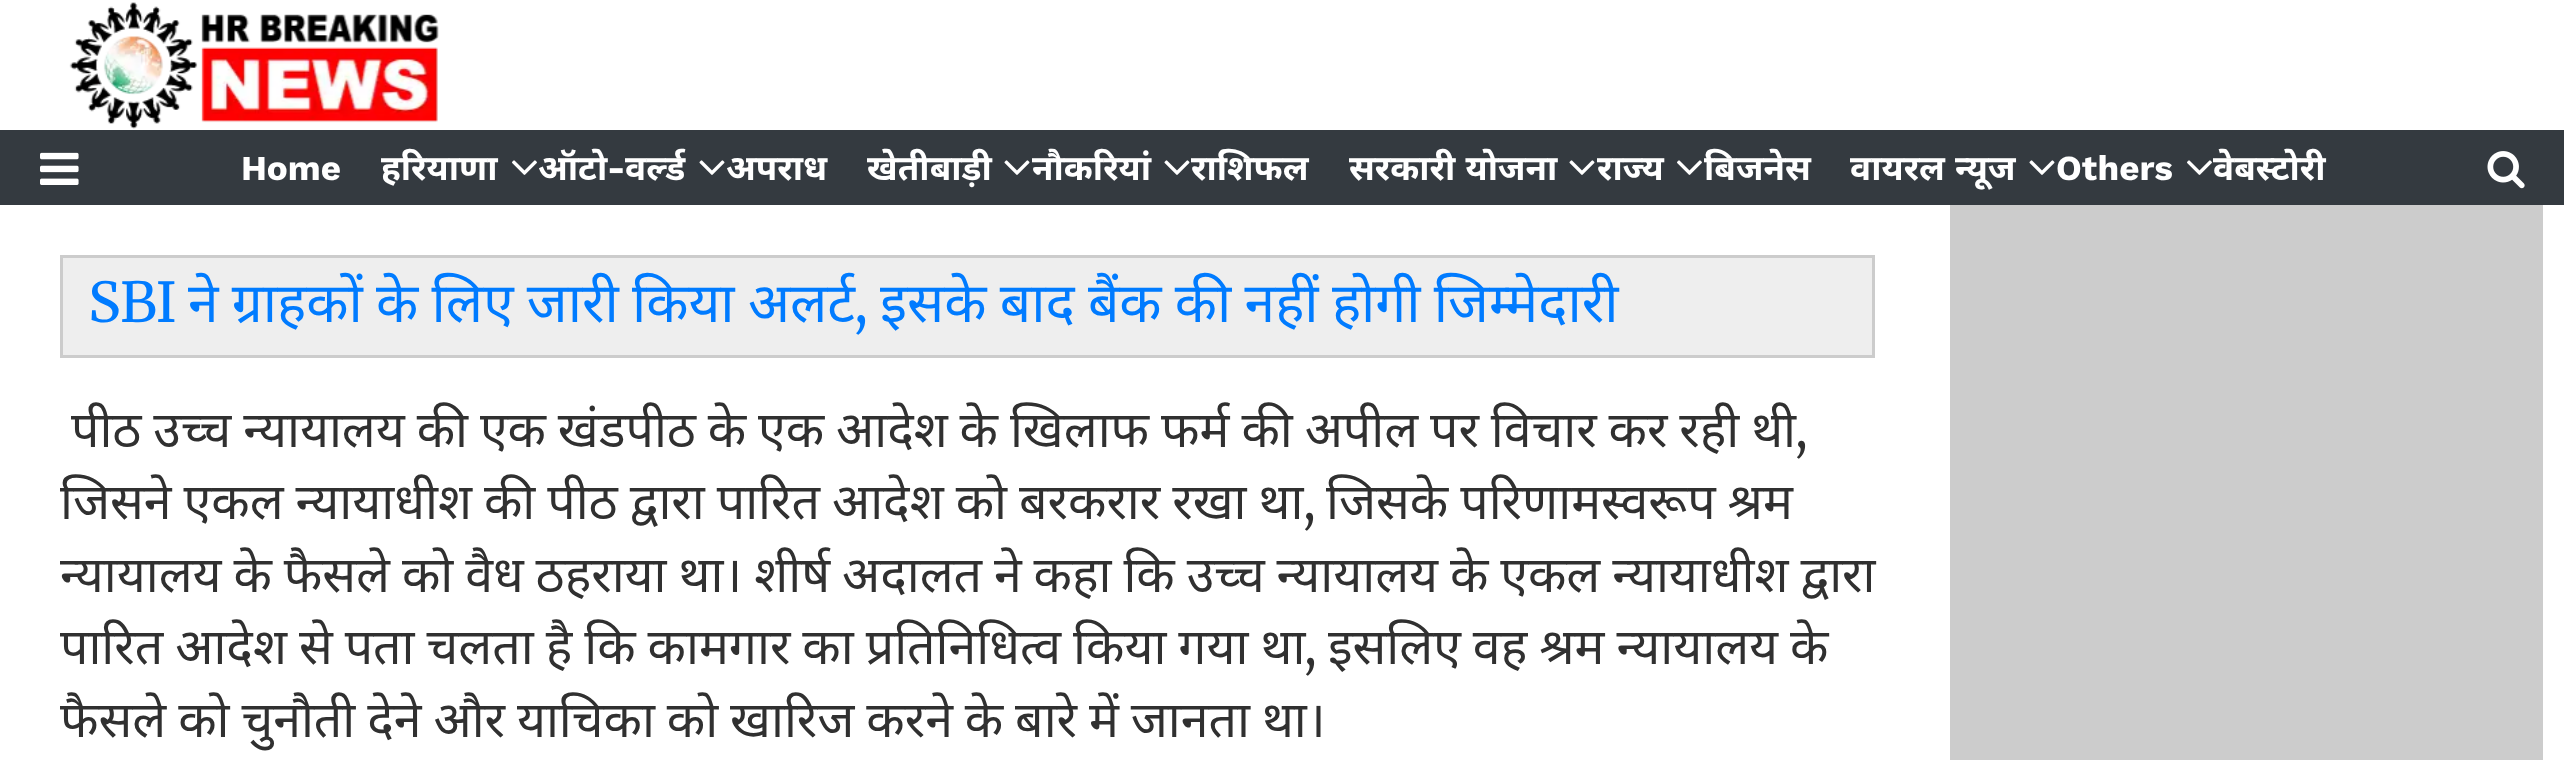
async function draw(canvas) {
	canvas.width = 2564;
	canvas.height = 776;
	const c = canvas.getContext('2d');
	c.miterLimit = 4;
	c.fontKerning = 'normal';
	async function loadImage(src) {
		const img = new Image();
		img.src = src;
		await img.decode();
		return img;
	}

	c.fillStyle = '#fff';
	c.fillRect(0, 0, 2564, 776);
	c.drawImage(await loadImage('img1.png'), 69, 2, 370, 127);
	c.fillStyle = '#343a40';
	c.fillRect(0, 130, 2564, 75);
	c.drawImage(await loadImage('img2.png'), 40, 152, 39, 33);
	c.font = 'bold 35px Work Sans';
	c.fillStyle = '#fff';
	c.fillText('Home', 241, 180);
	c.font = 'bold 35px Noto Sans';
	c.fillText('हरियाणा', 381, 180);
	c.drawImage(await loadImage('img3.png'), 512, 160, 25, 15);
	c.fillText('ऑटो', 538, 180);
	c.font = 'bold 35px Work Sans';
	c.fillText('-', 607, 180);
	c.font = 'bold 35px Noto Sans';
	c.fillText('वर्ल्ड', 625, 180);
	c.drawImage(await loadImage('img4.png'), 699, 160, 26, 15);
	c.fillText('अपराध', 726, 180);
	c.fillText('खेतीबाड़ी', 867, 180);
	c.drawImage(await loadImage('img4.png'), 1004, 160, 26, 15);
	c.fillText('नौकरियां', 1032, 180);
	c.drawImage(await loadImage('img4.png'), 1164, 160, 26, 15);
	c.fillText('राशिफल', 1191, 180);
	c.wordSpacing = '1px';
	c.fillText('सरकारी योजना', 1349, 180);
	c.drawImage(await loadImage('img4.png'), 1569, 160, 26, 15);
	c.wordSpacing = '0px';
	c.fillText('राज्य', 1597, 180);
	c.drawImage(await loadImage('img3.png'), 1677, 160, 25, 15);
	c.fillText('बिजनेस', 1704, 180);
	c.wordSpacing = '1px';
	c.fillText('वायरल न्यूज', 1850, 180);
	c.drawImage(await loadImage('img4.png'), 2029, 160, 26, 15);
	c.wordSpacing = '0px';
	c.font = 'bold 35px Work Sans';
	c.fillText('Others', 2056, 180);
	c.drawImage(await loadImage('img3.png'), 2187, 160, 25, 15);
	c.font = 'bold 35px Noto Sans';
	c.fillText('वेबस्टोरी', 2213, 180);
	c.drawImage(await loadImage('img5.png'), 2487, 151, 38, 38);
	c.fillStyle = '#eee';
	c.beginPath();
	c.rect(61.5, 256.5, 1812, 100);
	c.fill();
	c.strokeStyle = '#ccc';
	c.lineWidth = 3;
	c.stroke();
	c.font = '55px Merriweather';
	c.fillStyle = '#007bff';
	c.fillText('SBI', 88, 322);
	c.wordSpacing = '-1px';
	c.font = '55px Noto Sans';
	c.fillText('ने ग्राहकों के लिए जारी किया अलर्ट', 188, 322);
	c.fillText('इसके बाद बैंक की नहीं होगी जिम्मेदारी', 880, 322);
	c.wordSpacing = '0px';
	c.font = '55px Merriweather';
	c.fillText(',', 854, 322);
	c.wordSpacing = '-1.1px';
	c.font = '50px Noto Sans';
	c.fillStyle = '#303030';
	c.fillText('पीठ उच्च न्यायालय की एक खंडपीठ के एक आदेश के खिलाफ फर्म की अपील पर विचार कर रही थी', 71, 447);
	c.wordSpacing = '0px';
	c.font = '50px Merriweather';
	c.fillText(',', 1795, 447);
	c.wordSpacing = '-1px';
	c.font = '50px Noto Sans';
	c.fillText('जिसने एकल न्यायाधीश की पीठ द्वारा पारित आदेश को बरकरार रखा था', 60, 519);
	c.wordSpacing = '0px';
	c.font = '50px Merriweather';
	c.fillText(',', 1303, 519);
	c.wordSpacing = '-1px';
	c.font = '50px Noto Sans';
	c.fillText('जिसके परिणामस्वरूप श्रम', 1326, 519);
	c.wordSpacing = '-1.1px';
	c.fillText('न्यायालय के फैसले को वैध ठहराया था। शीर्ष अदालत ने कहा कि उच्च न्यायालय के एकल न्यायाधीश द्वारा', 60, 592);
	c.wordSpacing = '-1px';
	c.fillText('पारित आदेश से पता चलता है कि कामगार का प्रतिनिधित्व किया गया था', 60, 664);
	c.wordSpacing = '0px';
	c.font = '50px Merriweather';
	c.fillText(',', 1304, 664);
	c.wordSpacing = '-1px';
	c.font = '50px Noto Sans';
	c.fillText('इसलिए वह श्रम न्यायालय के', 1328, 664);
	c.wordSpacing = '-1.1px';
	c.fillText('फैसले को चुनौती देने और याचिका को खारिज करने के बारे में जानता था।', 60, 737);
	c.fillStyle = '#ccc';
	c.fillRect(1950, 205, 593, 555);
}

draw(document.querySelector('canvas'));
